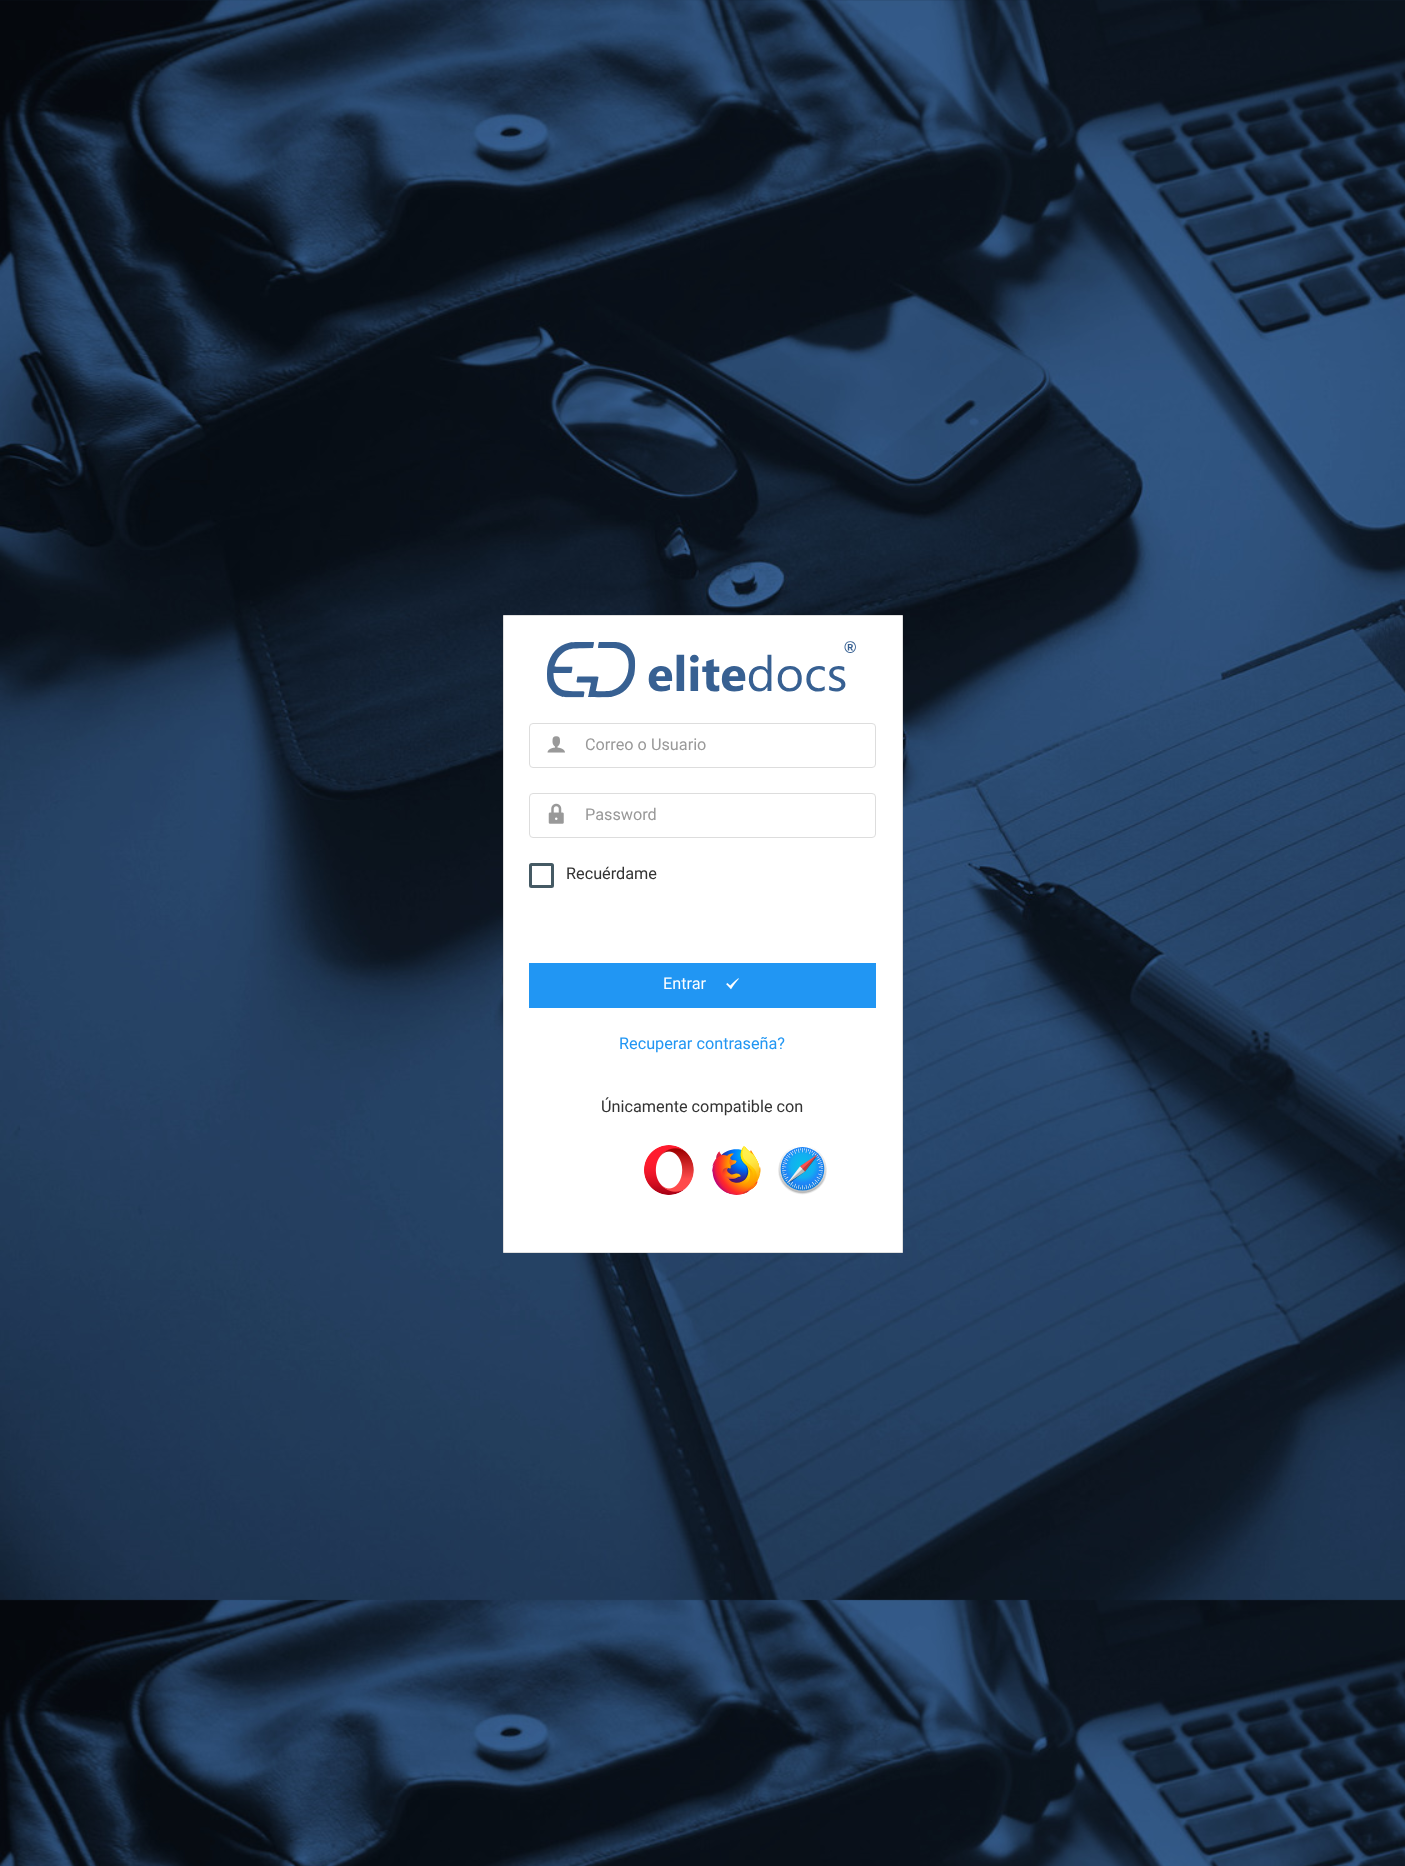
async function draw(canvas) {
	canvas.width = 1405;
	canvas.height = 1866;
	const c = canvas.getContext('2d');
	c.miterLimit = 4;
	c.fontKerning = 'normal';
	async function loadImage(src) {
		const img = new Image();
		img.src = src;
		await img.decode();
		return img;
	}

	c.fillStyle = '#fff';
	c.fillRect(0, 0, 1405, 1866);
	c.drawImage(await loadImage('img1.png'), 0, 0, 1405, 1866);
	c.beginPath();
	c.rect(503.5, 615.5, 399, 637);
	c.fill();
	c.strokeStyle = '#dfdfdf';
	c.stroke();
	c.drawImage(await loadImage('img2.png'), 547, 641, 309, 57);
	c.beginPath();
	c.roundRect(529.5, 723.5, 346, 44, 3.5);
	c.strokeStyle = '#ddd';
	c.stroke();
	c.drawImage(await loadImage('img3.png'), 547, 736, 18, 17);
	c.font = '16.25px Roboto';
	c.fillStyle = '#999';
	c.fillText('Correo o Usuario', 585, 750);
	c.beginPath();
	c.roundRect(529.5, 793.5, 346, 44, 3.5);
	c.stroke();
	c.drawImage(await loadImage('img4.png'), 548, 803, 16, 21);
	c.fillText('Password', 585, 820);
	c.beginPath();
	c.roundRect(530.5, 864.5, 22, 22, 1);
	c.strokeStyle = '#455a64';
	c.lineWidth = 3;
	c.stroke();
	c.fillStyle = '#333';
	c.fillText('Recuérdame', 566, 879);
	c.fillStyle = '#2196f3';
	c.fillRect(529, 963, 347, 45);
	c.fillStyle = '#fff';
	c.fillText('Entrar', 663, 989);
	c.drawImage(await loadImage('img5.png'), 726, 978, 13, 12);
	c.fillStyle = '#2196f3';
	c.fillText('Recuperar contraseña?', 619, 1049);
	c.fillStyle = '#333';
	c.fillText('Únicamente compatible con', 601, 1112);
	c.drawImage(await loadImage('img6.png'), 644, 1145, 50, 50);
	c.drawImage(await loadImage('img7.png'), 712, 1146, 49, 49);
	c.drawImage(await loadImage('img8.png'), 778, 1147, 49, 48);
}

draw(document.querySelector('canvas'));
